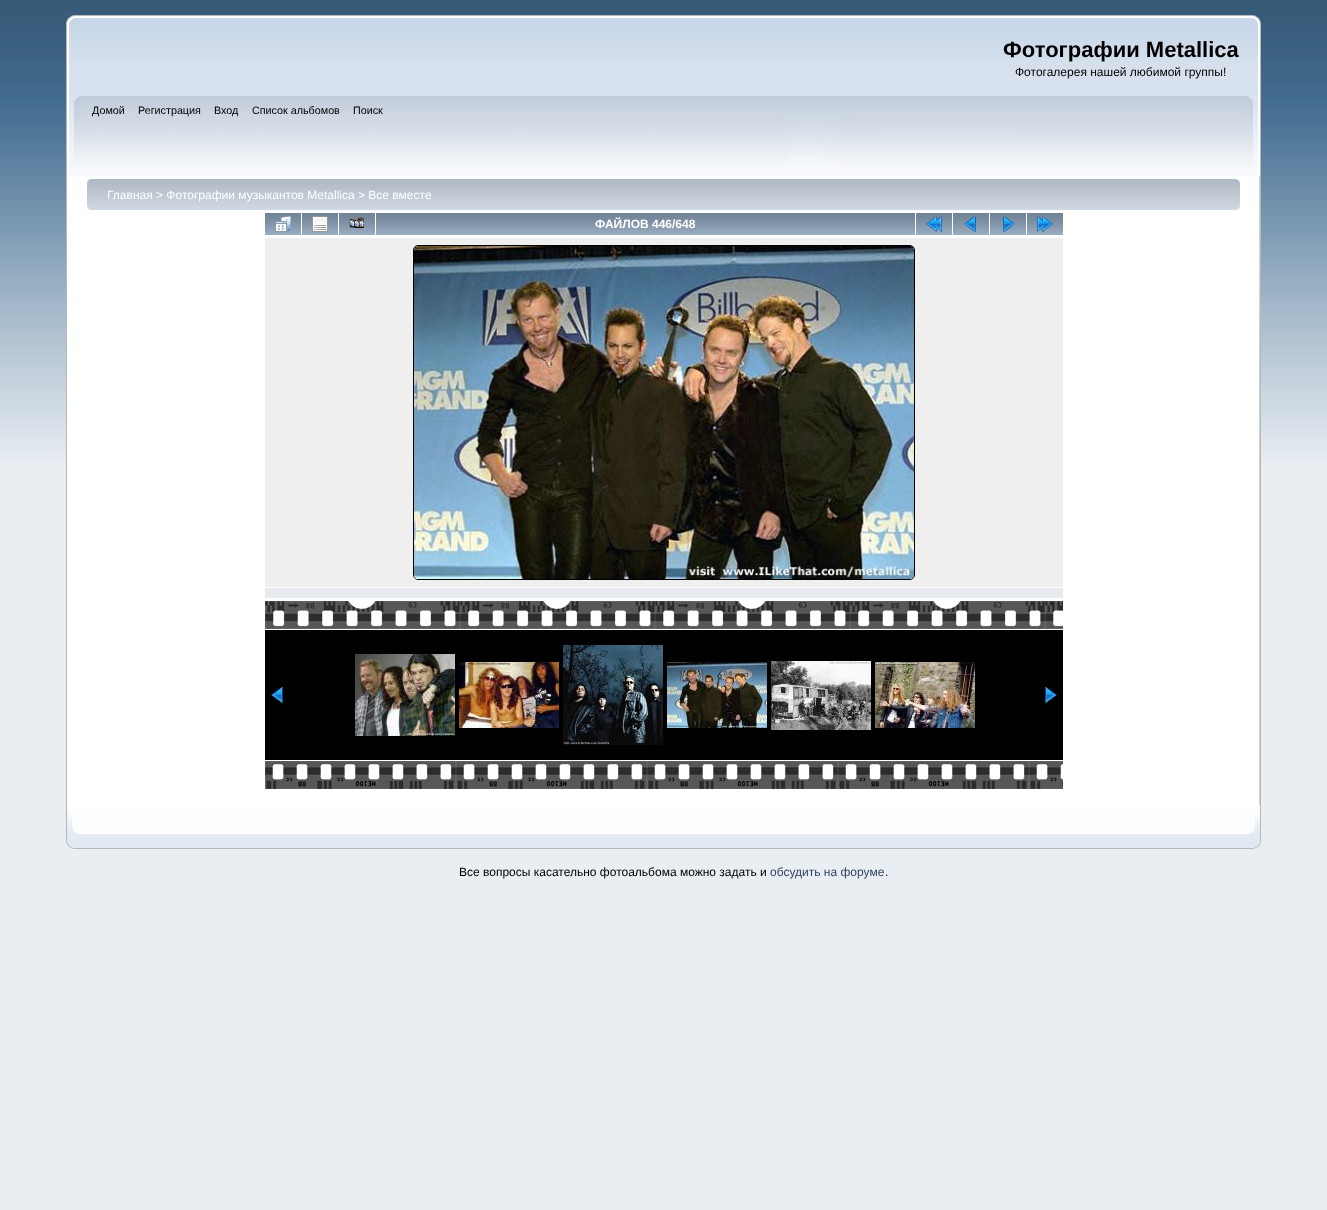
async function draw(canvas) {
	canvas.width = 1327;
	canvas.height = 1210;
	const c = canvas.getContext('2d');
	c.miterLimit = 4;
	c.fontKerning = 'normal';
	async function loadImage(src) {
		const img = new Image();
		img.src = src;
		await img.decode();
		return img;
	}

	c.fillStyle = '#e9eef2';
	c.fillRect(0, 0, 1327, 1210);
	c.drawImage(await loadImage('img1.png'), 0, 0, 1327, 462);
	c.drawImage(await loadImage('img2.png'), 66, 15, 1187, 81);
	c.drawImage(await loadImage('img3.png'), 1253, 15, 8, 81);
	c.font = 'bold 22px Liberation Sans';
	c.fillStyle = '#000';
	c.fillText('Фотографии Metallica', 1003, 57);
	c.font = '12px Liberation Sans';
	c.fillText('Фотогалерея нашей любимой группы!', 1015, 76);
	c.drawImage(await loadImage('img4.png'), 66, 96, 1180, 80);
	c.drawImage(await loadImage('img5.png'), 1246, 96, 15, 80);
	c.font = '10.75px Liberation Sans';
	for (const [text, x, y] of [
		['Домой', 92, 114],
		['Регистрация', 138, 114],
		['Вход', 214, 114],
		['Список альбомов', 252, 114],
		['Поиск', 353, 114],
	]) {
		c.fillText(text, x, y);
	}
	c.fillStyle = '#fff';
	c.fillRect(67, 176, 1192, 629);
	c.fillStyle = '#b7b7b7';
	c.fillRect(66, 176, 1, 629);
	c.drawImage(await loadImage('img6.png'), 1259, 176, 2, 629);
	c.drawImage(await loadImage('img7.png'), 87, 179, 1148, 31);
	c.drawImage(await loadImage('img8.png'), 1235, 179, 5, 31);
	c.font = '12px Liberation Sans';
	c.fillStyle = '#fff';
	c.fillText('Главная > Фотографии музыкантов Metallica > Все вместе', 107, 199);
	c.drawImage(await loadImage('img9.png'), 265, 213, 36, 22);
	c.drawImage(await loadImage('img10.png'), 275, 216, 16, 16);
	c.drawImage(await loadImage('img9.png'), 302, 213, 36, 22);
	c.drawImage(await loadImage('img11.png'), 312, 216, 16, 16);
	c.drawImage(await loadImage('img9.png'), 339, 213, 36, 22);
	c.drawImage(await loadImage('img12.png'), 349, 217, 16, 12);
	c.drawImage(await loadImage('img13.png'), 376, 213, 539, 22);
	c.font = 'bold 12px Liberation Sans';
	c.fillText('ФАЙЛОВ 446/648', 595, 228);
	c.drawImage(await loadImage('img9.png'), 916, 213, 36, 22);
	c.drawImage(await loadImage('img14.png'), 926, 216, 16, 16);
	c.drawImage(await loadImage('img9.png'), 953, 213, 36, 22);
	c.drawImage(await loadImage('img15.png'), 964, 216, 12, 16);
	c.drawImage(await loadImage('img9.png'), 990, 213, 36, 22);
	c.drawImage(await loadImage('img16.png'), 1003, 216, 12, 16);
	c.drawImage(await loadImage('img9.png'), 1027, 213, 36, 22);
	c.drawImage(await loadImage('img17.png'), 1037, 216, 16, 16);
	c.fillStyle = '#efefef';
	c.fillRect(265, 238, 798, 349);
	c.beginPath();
	c.roundRect(413.5, 245.5, 501, 334, 4.5);
	c.strokeStyle = '#000';
	c.stroke();
	c.drawImage(await loadImage('img18.png'), 414, 246, 500, 333);
	c.fillStyle = '#e7eaef';
	c.fillRect(265, 588, 798, 10);
	c.drawImage(await loadImage('img19.png'), 265, 601, 798, 28);
	c.fillStyle = '#000';
	c.fillRect(265, 630, 798, 130);
	c.drawImage(await loadImage('img20.png'), 271, 687, 12, 16);
	c.drawImage(await loadImage('img21.png'), 355, 654, 100, 82);
	c.drawImage(await loadImage('img22.png'), 459, 662, 100, 66);
	c.drawImage(await loadImage('img23.png'), 563, 645, 100, 100);
	c.drawImage(await loadImage('img24.png'), 667, 662, 100, 66);
	c.drawImage(await loadImage('img25.png'), 771, 661, 100, 69);
	c.drawImage(await loadImage('img26.png'), 875, 662, 100, 66);
	c.drawImage(await loadImage('img27.png'), 1045, 687, 12, 16);
	c.drawImage(await loadImage('img28.png'), 265, 761, 798, 28);
	c.drawImage(await loadImage('img29.png'), 66, 805, 1182, 44);
	c.drawImage(await loadImage('img30.png'), 1248, 805, 13, 44);
	c.font = '12px Liberation Sans';
	c.fillText('Все вопросы касательно фотоальбома можно задать и', 459, 876);
	c.fillStyle = '#346';
	c.fillText('обсудить на форуме', 770, 876);
	c.fillStyle = '#000';
	c.fillText('.', 885, 876);
}

draw(document.querySelector('canvas'));
